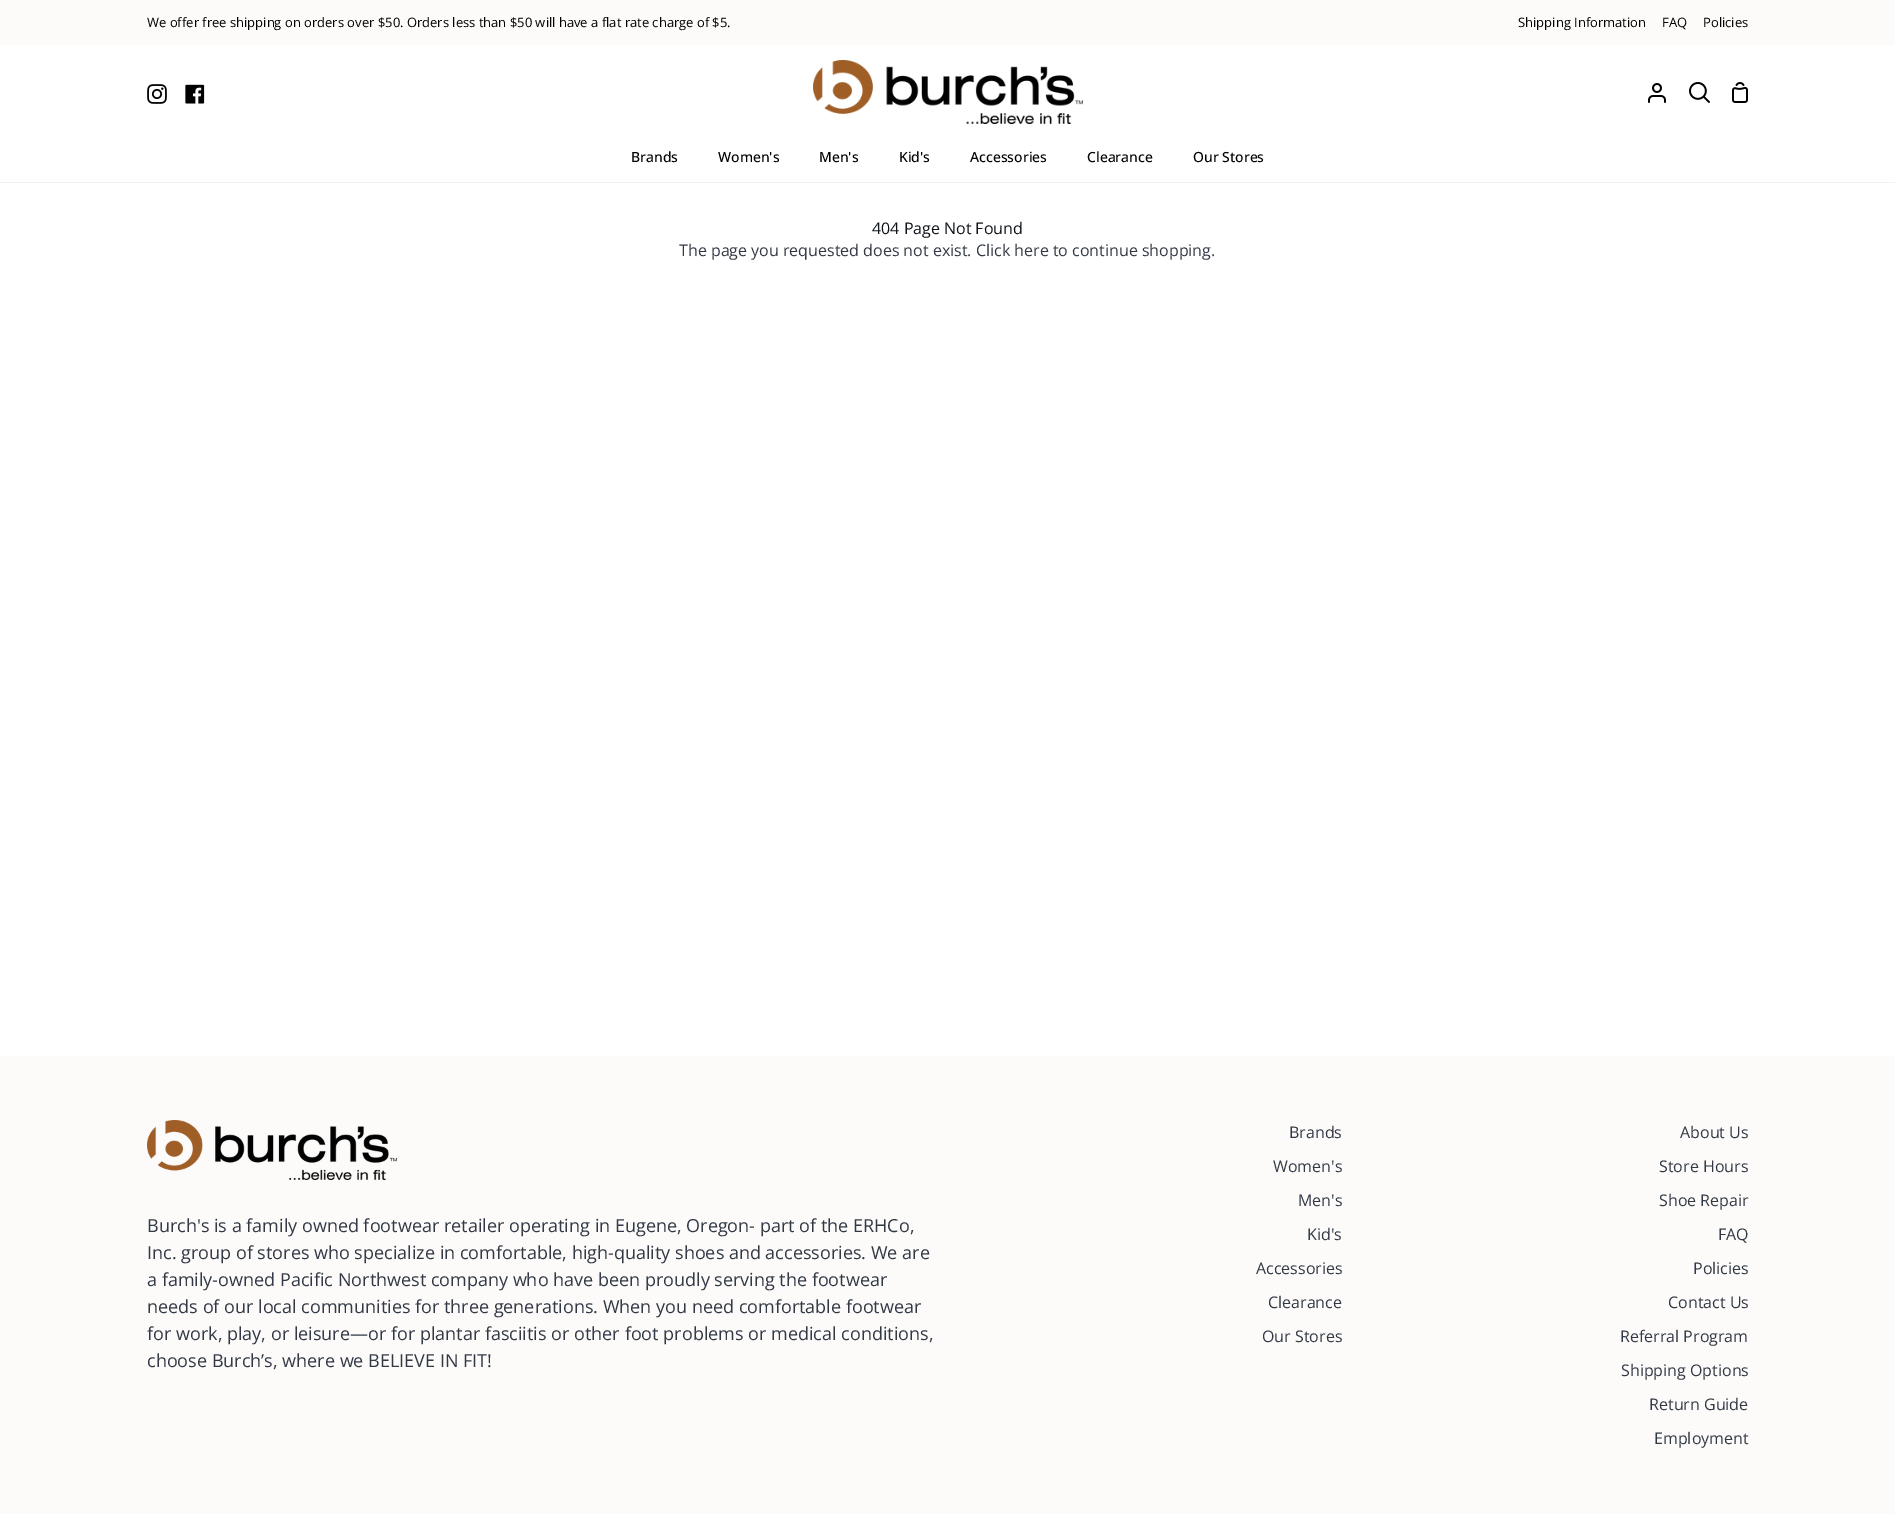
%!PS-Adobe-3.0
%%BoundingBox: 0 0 1895 1514
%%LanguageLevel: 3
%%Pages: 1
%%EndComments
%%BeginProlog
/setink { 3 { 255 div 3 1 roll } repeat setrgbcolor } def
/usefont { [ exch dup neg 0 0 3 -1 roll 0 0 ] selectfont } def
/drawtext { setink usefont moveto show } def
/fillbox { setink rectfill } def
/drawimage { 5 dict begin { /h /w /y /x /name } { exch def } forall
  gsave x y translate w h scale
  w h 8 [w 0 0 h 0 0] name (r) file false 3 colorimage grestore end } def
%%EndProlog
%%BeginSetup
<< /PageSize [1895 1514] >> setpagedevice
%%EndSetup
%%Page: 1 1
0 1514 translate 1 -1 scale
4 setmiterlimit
0 0 1895 1514 255 255 255 fillbox
0 182 1895 1 242 242 242 fillbox
0 0 1895 45 252 251 250 fillbox
(We offer free shipping on orders over $50. Orders less than $50 will have a flat rate charge of $5.) 147 27 /OpenSans-Regular 13 0 0 0 drawtext
(Shipping Information) 1518 27 /OpenSans-Regular 13 0 0 0 drawtext
(FAQ) 1662 27 /OpenSans-Regular 13 0 0 0 drawtext
(Policies) 1703 27 /OpenSans-Regular 13 0 0 0 drawtext
(assets/img1.rgb) 147 84 20 20 drawimage
(assets/img2.rgb) 185 84 20 20 drawimage
(assets/img3.rgb) 813 60 270 64 drawimage
(assets/img4.rgb) 1648 83 18 20 drawimage
(assets/img5.rgb) 1689 82 21 21 drawimage
(assets/img6.rgb) 1732 82 16 21 drawimage
(Brands) 631 162 /OpenSans-Medium 14 0 0 0 drawtext
(Women's) 718 162 /OpenSans-Medium 14 0 0 0 drawtext
(Men's) 819 162 /OpenSans-Medium 14 0 0 0 drawtext
(Kid's) 899 162 /OpenSans-Medium 14 0 0 0 drawtext
(Accessories) 970 162 /OpenSans-Medium 14 0 0 0 drawtext
(Clearance) 1087 162 /OpenSans-Medium 14 0 0 0 drawtext
(Our Stores) 1193 162 /OpenSans-Medium 14 0 0 0 drawtext
(404 Page Not Found) 872 234 /OpenSans-Regular 16 16 20 27 drawtext
(The page you requested does not exist. Click here to continue shopping.) 679 256 /OpenSans-Regular 16 50 57 69 drawtext
0 1056 1895 458 252 251 250 fillbox
(assets/img7.rgb) 147 1120 250 60 drawimage
(Burch's is a family owned footwear retailer operating in Eugene, Oregon- part of the ERHCo,) 147 1232 /OpenSans-Regular 18 50 57 69 drawtext
(Inc. group of stores who specialize in comfortable, high-quality shoes and accessories. We are) 147 1259 /OpenSans-Regular 18 50 57 69 drawtext
(a family-owned Pacific Northwest company who have been proudly serving the footwear) 147 1286 /OpenSans-Regular 18 50 57 69 drawtext
(needs of our local communities for three generations. When you need comfortable footwear) 147 1313 /OpenSans-Regular 18 50 57 69 drawtext
(for work, play, or leisure—or for plantar fasciitis or other foot problems or medical conditions,) 147 1340 /OpenSans-Regular 18 50 57 69 drawtext
(choose Burch’s, where we BELIEVE IN FIT!) 147 1367 /OpenSans-Regular 18 50 57 69 drawtext
(Brands) 1289 1138 /OpenSans-Regular 16 50 57 69 drawtext
(Women's) 1273 1172 /OpenSans-Regular 16 50 57 69 drawtext
(Men's) 1298 1206 /OpenSans-Regular 16 50 57 69 drawtext
(Kid's) 1307 1240 /OpenSans-Regular 16 50 57 69 drawtext
(Accessories) 1256 1274 /OpenSans-Regular 16 50 57 69 drawtext
(Clearance) 1268 1308 /OpenSans-Regular 16 50 57 69 drawtext
(Our Stores) 1262 1342 /OpenSans-Regular 16 50 57 69 drawtext
(About Us) 1680 1138 /OpenSans-Regular 16 50 57 69 drawtext
(Store Hours) 1659 1172 /OpenSans-Regular 16 50 57 69 drawtext
(Shoe Repair) 1659 1206 /OpenSans-Regular 16 50 57 69 drawtext
(FAQ) 1718 1240 /OpenSans-Regular 16 50 57 69 drawtext
(Policies) 1693 1274 /OpenSans-Regular 16 50 57 69 drawtext
(Contact Us) 1668 1308 /OpenSans-Regular 16 50 57 69 drawtext
(Referral Program) 1620 1342 /OpenSans-Regular 16 50 57 69 drawtext
(Shipping Options) 1621 1376 /OpenSans-Regular 16 50 57 69 drawtext
(Return Guide) 1649 1410 /OpenSans-Regular 16 50 57 69 drawtext
(Employment) 1654 1444 /OpenSans-Regular 16 50 57 69 drawtext
showpage
%%EOF
